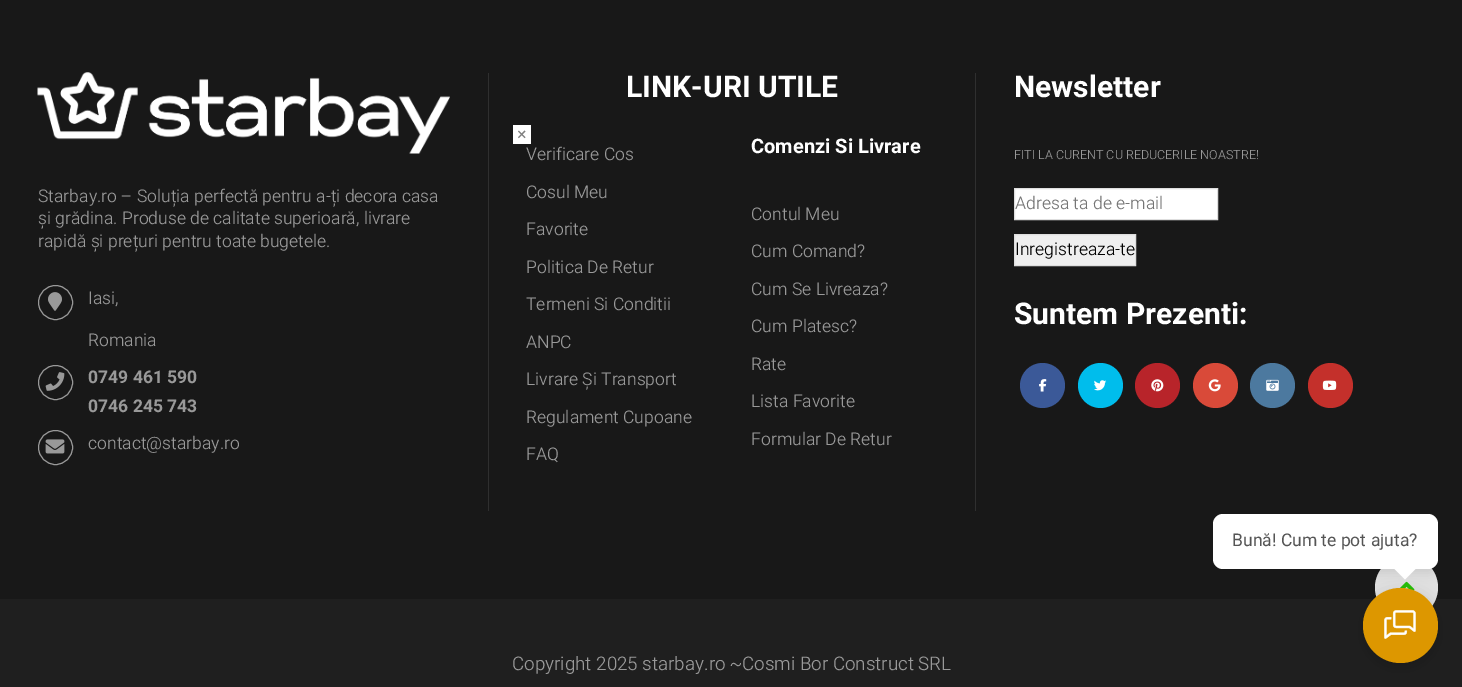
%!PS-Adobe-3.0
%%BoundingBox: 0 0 1462 687
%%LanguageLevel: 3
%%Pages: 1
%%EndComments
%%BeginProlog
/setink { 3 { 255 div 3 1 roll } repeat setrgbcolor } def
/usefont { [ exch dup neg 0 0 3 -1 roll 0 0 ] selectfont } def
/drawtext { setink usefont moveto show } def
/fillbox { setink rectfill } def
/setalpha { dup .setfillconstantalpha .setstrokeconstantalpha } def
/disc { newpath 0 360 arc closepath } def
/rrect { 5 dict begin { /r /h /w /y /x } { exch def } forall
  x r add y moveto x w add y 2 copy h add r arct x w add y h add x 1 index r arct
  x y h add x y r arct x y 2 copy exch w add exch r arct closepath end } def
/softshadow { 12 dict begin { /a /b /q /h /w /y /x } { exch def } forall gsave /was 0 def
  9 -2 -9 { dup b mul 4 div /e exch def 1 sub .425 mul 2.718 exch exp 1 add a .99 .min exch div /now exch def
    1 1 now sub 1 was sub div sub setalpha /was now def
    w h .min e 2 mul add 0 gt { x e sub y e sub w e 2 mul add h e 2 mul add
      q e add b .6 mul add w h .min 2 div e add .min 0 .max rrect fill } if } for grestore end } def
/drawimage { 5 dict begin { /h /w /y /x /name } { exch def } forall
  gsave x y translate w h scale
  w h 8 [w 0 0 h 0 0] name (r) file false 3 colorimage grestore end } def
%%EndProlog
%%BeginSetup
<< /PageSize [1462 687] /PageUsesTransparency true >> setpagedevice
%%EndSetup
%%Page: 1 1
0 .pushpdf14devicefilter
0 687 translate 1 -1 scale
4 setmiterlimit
0 0 1462 687 24 24 24 fillbox
(assets/img1.rgb) 37 72 413 82 drawimage
(Starbay.ro – Soluția perfectă pentru a-ți decora casa) 38 202 /Heebo-Light 17.5 153 153 153 drawtext
(și grădina. Produse de calitate superioară, livrare) 38 224 /Heebo-Light 17.5 153 153 153 drawtext
(rapidă și prețuri pentru toate bugetele.) 38 247 /Heebo-Light 17.5 153 153 153 drawtext
55.5 302.5 17 disc stroke
(assets/img2.rgb) 48 292 14 19 drawimage
(Iasi,) 88 304 /Heebo-Light 17.5 153 153 153 drawtext
(Romania) 88 346 /Heebo-Light 17.5 153 153 153 drawtext
55.5 382.5 17 disc stroke
(assets/img3.rgb) 45 372 20 19 drawimage
(0749 461 590) 88 383 /Heebo-Bold 17.5 153 153 153 drawtext
(0746 245 743) 88 412 /Heebo-Bold 17.5 153 153 153 drawtext
55.5 447.5 17 disc stroke
(assets/img4.rgb) 45 439 20 15 drawimage
(contact@starbay.ro) 88 449 /Heebo-Light 17.5 153 153 153 drawtext
488 73 1 438 47 47 47 fillbox
(LINK-URI UTILE) 626 97 /Heebo-Bold 30 255 255 255 drawtext
(Verificare Cos) 526 160 /Heebo-Light 17.5 153 153 153 drawtext
(Cosul Meu) 526 198 /Heebo-Light 17.5 153 153 153 drawtext
(Favorite) 526 235 /Heebo-Light 17.5 153 153 153 drawtext
(Politica De Retur) 526 273 /Heebo-Light 17.5 153 153 153 drawtext
(Termeni Si Conditii) 526 310 /Heebo-Light 17.5 153 153 153 drawtext
(ANPC) 526 348 /Heebo-Light 17.5 153 153 153 drawtext
(Livrare Și Transport) 526 385 /Heebo-Light 17.5 153 153 153 drawtext
(Regulament Cupoane) 526 423 /Heebo-Light 17.5 153 153 153 drawtext
(FAQ) 526 460 /Heebo-Light 17.5 153 153 153 drawtext
(Comenzi Si Livrare) 751 153 /Heebo-Bold 20 255 255 255 drawtext
(Contul Meu) 751 220 /Heebo-Light 17.5 153 153 153 drawtext
(Cum Comand?) 751 257 /Heebo-Light 17.5 153 153 153 drawtext
(Cum Se Livreaza?) 751 295 /Heebo-Light 17.5 153 153 153 drawtext
(Cum Platesc?) 751 332 /Heebo-Light 17.5 153 153 153 drawtext
(Rate) 751 370 /Heebo-Light 17.5 153 153 153 drawtext
(Lista Favorite) 751 407 /Heebo-Light 17.5 153 153 153 drawtext
(Formular De Retur) 751 445 /Heebo-Light 17.5 153 153 153 drawtext
975 73 1 438 47 47 47 fillbox
(Newsletter) 1014 97 /Heebo-Bold 30 255 255 255 drawtext
(FITI LA CURENT CU REDUCERILE NOASTRE!) 1014 159 /Heebo-Light 12.5 153 153 153 drawtext
255 255 255 setink
1014.5 188.5 moveto 1217.5 188.5 lineto 1217.5 219.5 lineto 1014.5 219.5 lineto closepath gsave fill grestore
222 222 222 setink
stroke
(Adresa ta de e-mail) 1015 209 /Heebo-Light 17.5 117 117 117 drawtext
239 239 239 setink
1014.5 234.5 moveto 1135.5 234.5 lineto 1135.5 265.5 lineto 1014.5 265.5 lineto closepath gsave fill grestore
222 222 222 setink
stroke
(Inregistreaza-te) 1015 255 /Heebo-Light 17.5 0 0 0 drawtext
(Suntem Prezenti:) 1014 324 /Heebo-Bold 30 255 255 255 drawtext
59 89 152 setink
1042.5 385.5 22.5 disc fill
(assets/img5.rgb) 1039 379 8 13 drawimage
0 189 236 setink
1100.5 385.5 22.5 disc fill
(assets/img6.rgb) 1094 380 13 11 drawimage
184 36 42 setink
1157.5 385.5 22.5 disc fill
(assets/img7.rgb) 1151 379 13 13 drawimage
217 74 57 setink
1215.5 385.5 22.5 disc fill
(assets/img8.rgb) 1208 379 13 13 drawimage
76 121 159 setink
1272.5 385.5 22.5 disc fill
(assets/img9.rgb) 1266 379 13 12 drawimage
196 48 43 setink
1330.5 385.5 22.5 disc fill
(assets/img10.rgb) 1322 380 15 10 drawimage
0 599 1462 88 31 31 31 fillbox
224 224 224 setink
1406.5 587.5 31.5 disc fill
(assets/img11.rgb) 1399 581 16 10 drawimage
(Copyright 2025 starbay.ro ~Cosmi Bor Construct SRL) 512 670 /Heebo-Light 18.75 153 153 153 drawtext
513 125 18 19 255 255 255 fillbox
(×) 517 140 /Heebo-Regular 17.5 128 128 128 drawtext
0 0 0 setink
1213 518 225 55 10 5 0.1 softshadow
255 255 255 setink
1213 514 225 55 10 rrect fill
(Bună! Cum te pot ajuta?) 1232 546 /Heebo-Regular 17.5 85 85 85 drawtext
255 255 255 setink
1405 558 moveto 1415.5 569 lineto 1405 579.5 lineto 1394.5 569 lineto closepath fill
0 0 0 setink
1363 593 75 75 37.5 7.5 0.15 softshadow
221 151 0 setink
1400.5 625.5 37.5 disc fill
(assets/img12.rgb) 1384 610 32 29 drawimage
.poppdf14devicefilter showpage
%%EOF
